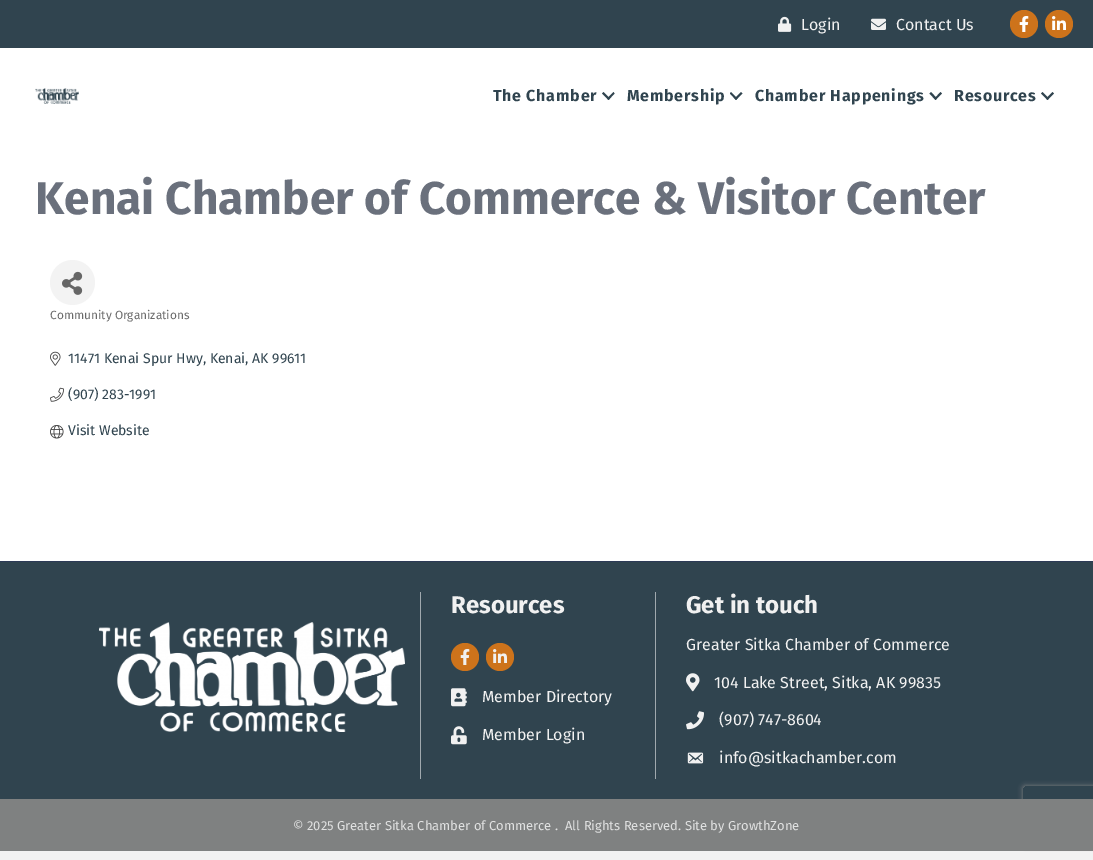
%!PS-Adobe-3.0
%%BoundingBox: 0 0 1093 860
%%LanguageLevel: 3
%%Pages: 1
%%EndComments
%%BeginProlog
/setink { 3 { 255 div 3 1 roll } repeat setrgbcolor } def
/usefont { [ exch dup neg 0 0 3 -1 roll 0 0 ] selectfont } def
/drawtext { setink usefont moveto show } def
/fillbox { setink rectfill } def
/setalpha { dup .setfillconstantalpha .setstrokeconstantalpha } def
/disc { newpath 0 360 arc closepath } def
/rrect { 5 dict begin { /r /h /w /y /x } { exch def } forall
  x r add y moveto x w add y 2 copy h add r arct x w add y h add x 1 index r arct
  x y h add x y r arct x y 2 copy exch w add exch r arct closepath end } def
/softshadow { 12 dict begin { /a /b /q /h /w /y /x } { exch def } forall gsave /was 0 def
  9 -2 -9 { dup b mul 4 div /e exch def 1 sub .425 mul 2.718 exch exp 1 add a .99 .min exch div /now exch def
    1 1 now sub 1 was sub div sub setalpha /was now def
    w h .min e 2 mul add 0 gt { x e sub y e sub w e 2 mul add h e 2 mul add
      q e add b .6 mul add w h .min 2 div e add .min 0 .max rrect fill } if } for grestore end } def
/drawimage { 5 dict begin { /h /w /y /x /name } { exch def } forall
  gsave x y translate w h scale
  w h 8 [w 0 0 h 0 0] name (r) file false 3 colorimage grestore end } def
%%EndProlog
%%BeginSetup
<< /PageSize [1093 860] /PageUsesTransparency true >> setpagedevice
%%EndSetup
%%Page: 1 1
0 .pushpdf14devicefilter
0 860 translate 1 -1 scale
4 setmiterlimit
0 0 1093 860 242 242 242 fillbox
0 0 1093 48 48 68 79 fillbox
(assets/img1.rgb) 778 16 14 16 drawimage
(Login) 801 30 /FiraSans-Regular 16 241 241 241 drawtext
(assets/img2.rgb) 871 18 15 12 drawimage
(Contact Us) 896 30 /FiraSans-Regular 16 241 241 241 drawtext
205 115 27 setink
1024 24 14 disc fill
(assets/img3.rgb) 1019 16 10 16 drawimage
1059 24 14 disc fill
(assets/img4.rgb) 1052 16 14 14 drawimage
0 48 1093 513 255 255 255 fillbox
(assets/img5.rgb) 35 88 44 16 drawimage
/FiraSans-Bold 16 usefont
48 68 79 setink
493 101 moveto 0.75 0 (The Chamber) ashow
613.5 92 moveto 614.5 93.5 lineto 608.5 100 lineto 607 98.5 lineto closepath fill
603.5 92 moveto 610 98.5 lineto 608.5 100 lineto 602 93.5 lineto closepath fill
627 101 moveto 0.75 0 (Membership) ashow
741 92 moveto 742.5 93.5 lineto 736 100 lineto 734.5 98.5 lineto closepath fill
731 92 moveto 737.5 98.5 lineto 736 100 lineto 730 93.5 lineto closepath fill
755 101 moveto 0.75 0 (Chamber Happenings) ashow
940.5 92 moveto 942 93.5 lineto 935.5 100 lineto 934.5 98.5 lineto closepath fill
931 92 moveto 937 98.5 lineto 935.5 100 lineto 929.5 93.5 lineto closepath fill
954 101 moveto 0.75 0 (Resources) ashow
1052.5 92 moveto 1054 93.5 lineto 1047.5 100 lineto 1046 98.5 lineto closepath fill
1042.5 92 moveto 1049 98.5 lineto 1047.5 100 lineto 1041 93.5 lineto closepath fill
(Kenai Chamber of Commerce & Visitor Center) 35 214 /FiraSans-Bold 46 106 112 124 drawtext
243 243 243 setink
72.5 282.5 22.5 disc fill
(assets/img6.rgb) 62 271 21 24 drawimage
(Community Organizations) 50 319 /FiraSans-Regular 11.9 105 105 105 drawtext
(assets/img7.rgb) 50 351 11 15 drawimage
(11471 Kenai Spur Hwy, Kenai, AK 99611) 68 363 /FiraSans-Regular 14 48 68 79 drawtext
(assets/img8.rgb) 50 387 14 15 drawimage
(\(907\) 283-1991) 68 399 /FiraSans-Regular 14 48 68 79 drawtext
(assets/img9.rgb) 50 425 14 14 drawimage
(Visit Website) 68 435 /FiraSans-Regular 14 48 68 79 drawtext
0 562 1093 237 48 68 79 fillbox
0 561 1093 1 44 58 86 fillbox
(assets/img10.rgb) 99 622 306 110 drawimage
420 592 1 187 160 169 174 fillbox
(Resources) 451 613 /FiraSans-Bold 24 241 241 241 drawtext
205 115 27 setink
465 657 14 disc fill
(assets/img11.rgb) 460 649 10 16 drawimage
500 657 14 disc fill
(assets/img12.rgb) 493 649 14 14 drawimage
(assets/img13.rgb) 451 688 16 19 drawimage
(Member Directory) 482 702 /FiraSans-Regular 16 241 241 241 drawtext
(assets/img14.rgb) 451 726 16 19 drawimage
(Member Login) 482 740 /FiraSans-Regular 16 241 241 241 drawtext
655 592 1 187 160 169 174 fillbox
(Get in touch) 686 613 /FiraSans-Bold 24 241 241 241 drawtext
(Greater Sitka Chamber of Commerce) 686 650 /FiraSans-Regular 16 241 241 241 drawtext
(assets/img15.rgb) 686 673 14 19 drawimage
(104 Lake Street, Sitka, AK 99835) 714 688 /FiraSans-Regular 16 241 241 241 drawtext
(assets/img16.rgb) 686 711 18 19 drawimage
(\(907\) 747-8604) 719 725 /FiraSans-Regular 16 241 241 241 drawtext
(assets/img17.rgb) 687 752 17 12 drawimage
(info@sitkachamber.com) 719 763 /FiraSans-Regular 16 241 241 241 drawtext
0 799 1093 52 127 129 129 fillbox
(© 2025 Greater Sitka Chamber of Commerce .) 293 830 /FiraSans-Regular 13 224 225 225 drawtext
(All Rights Reserved. Site by GrowthZone) 565 830 /FiraSans-Regular 13 224 225 225 drawtext
gsave
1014 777 moveto 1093 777 lineto 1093 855 lineto 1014 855 lineto closepath 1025 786 moveto 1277 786 lineto 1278 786 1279 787 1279 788 curveto 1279 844 lineto 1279 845 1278 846 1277 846 curveto 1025 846 lineto 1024 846 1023 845 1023 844 curveto 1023 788 lineto 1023 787 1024 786 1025 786 curveto closepath eoclip newpath
128 128 128 setink
1023 786 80 60 2 2.5 1 softshadow
grestore
.poppdf14devicefilter showpage
%%EOF
